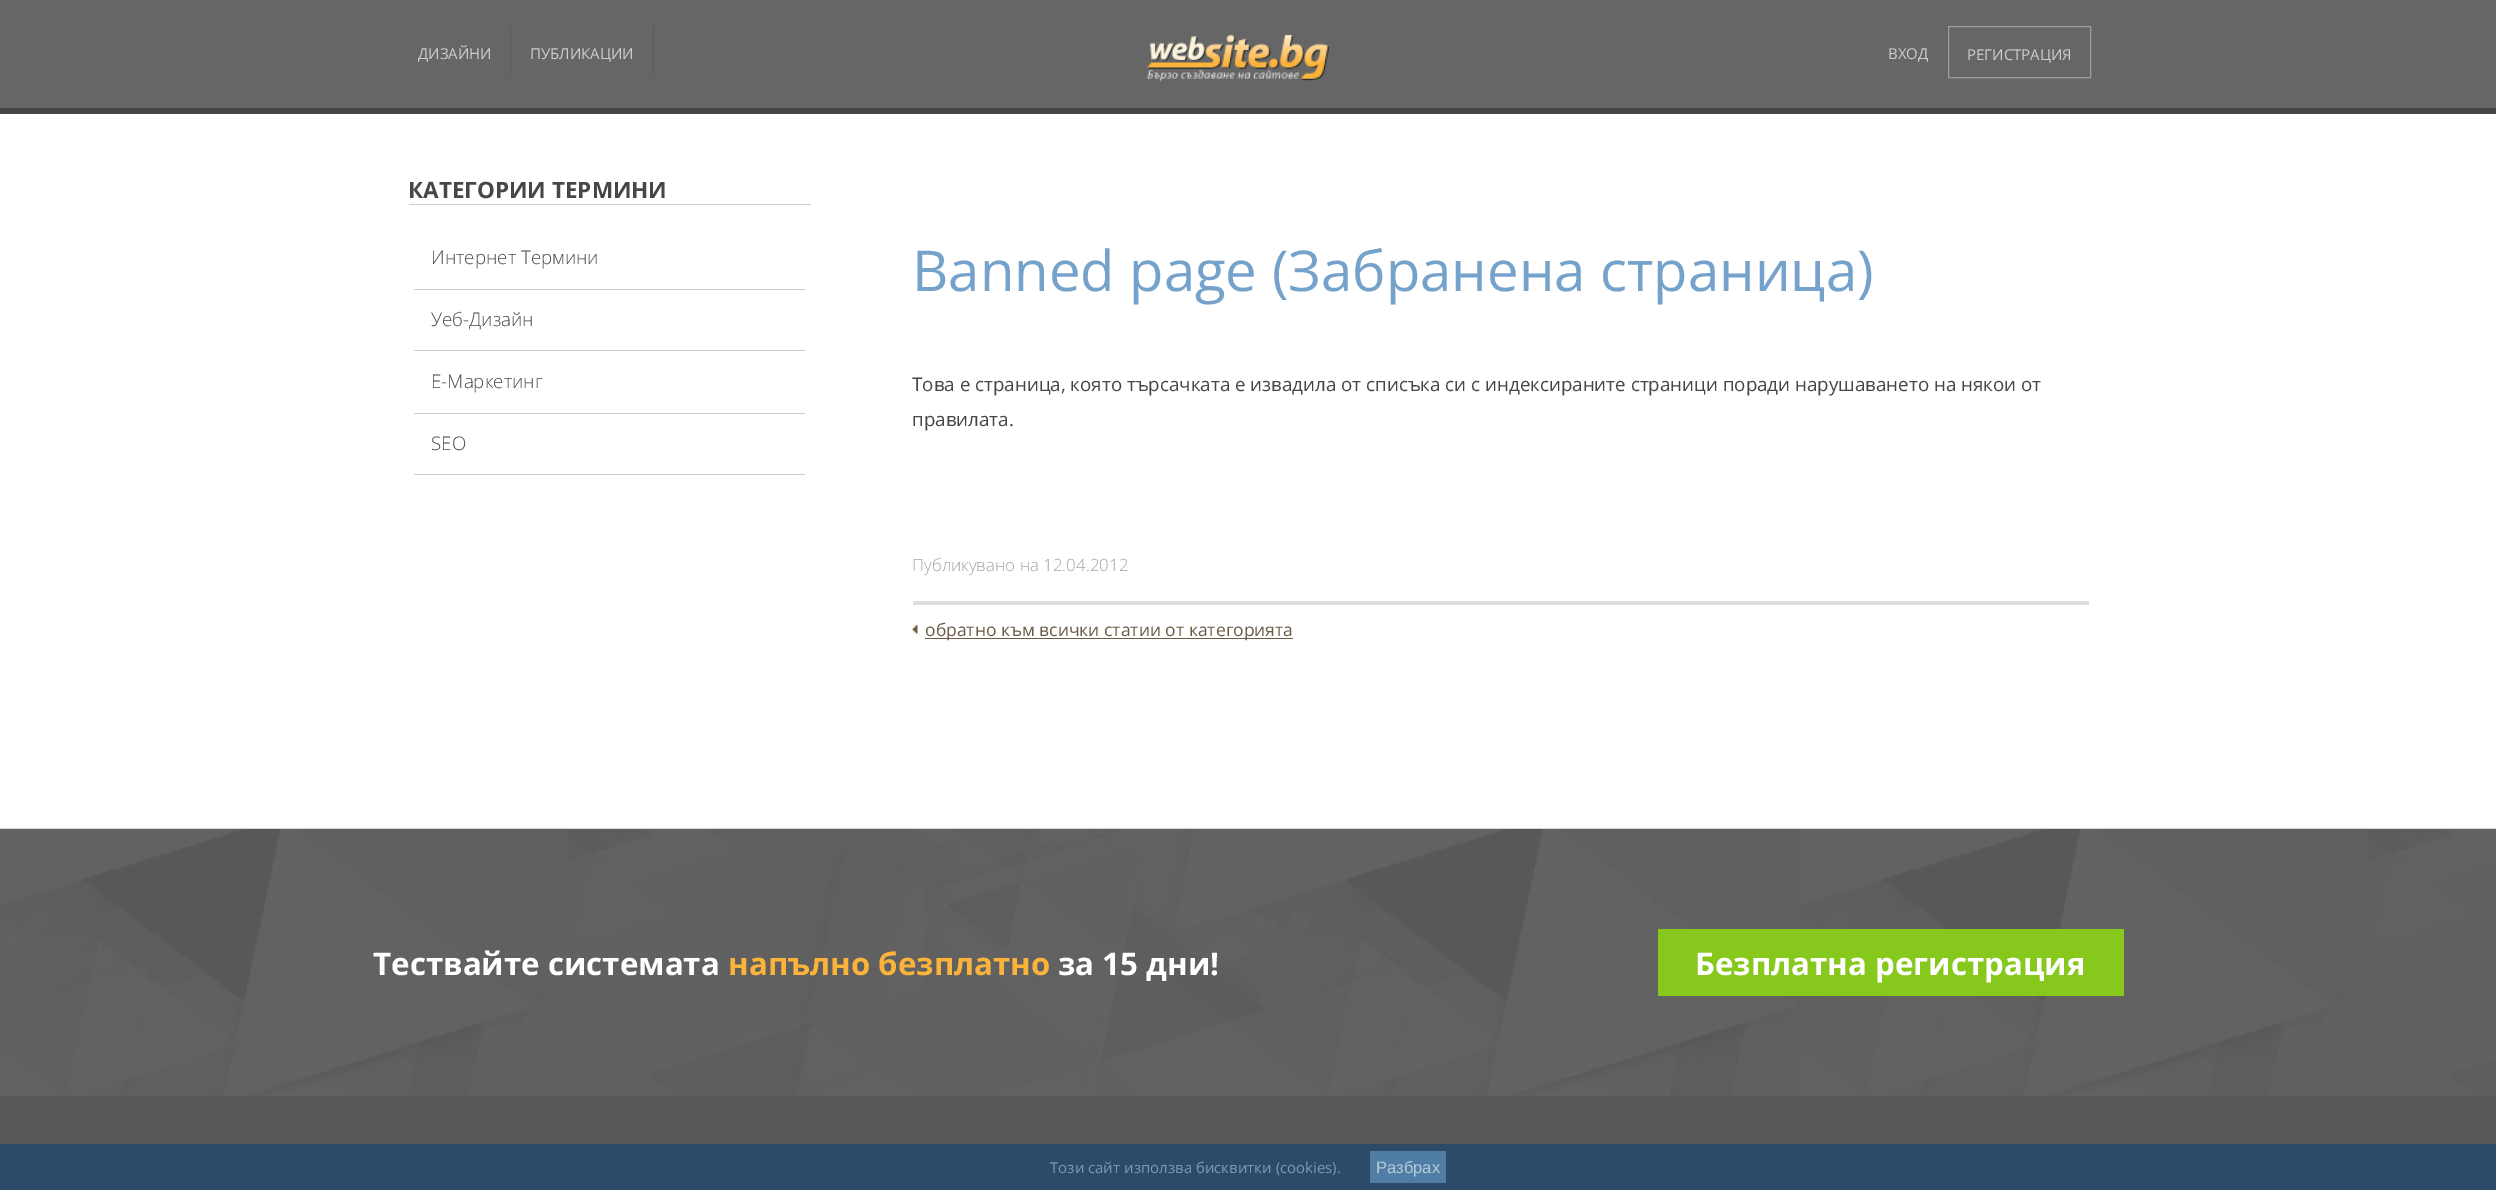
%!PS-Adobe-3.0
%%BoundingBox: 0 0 2496 1190
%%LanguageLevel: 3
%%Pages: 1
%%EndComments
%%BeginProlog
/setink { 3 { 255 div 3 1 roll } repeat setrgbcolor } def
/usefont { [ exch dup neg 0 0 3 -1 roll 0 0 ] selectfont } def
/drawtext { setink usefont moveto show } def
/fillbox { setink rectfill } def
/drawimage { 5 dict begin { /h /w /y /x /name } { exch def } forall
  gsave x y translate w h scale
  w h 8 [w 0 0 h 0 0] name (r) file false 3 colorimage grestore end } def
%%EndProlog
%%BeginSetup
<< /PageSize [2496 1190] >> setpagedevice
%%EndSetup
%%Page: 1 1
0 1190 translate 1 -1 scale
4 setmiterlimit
0 0 2496 1190 255 255 255 fillbox
0 0 2496 108 102 102 102 fillbox
0 108 2496 6 71 71 71 fillbox
510 26 1 49 90 90 90 fillbox
(ДИЗАЙНИ) 418 59 /OpenSans-Regular 15 205 205 205 drawtext
653 26 1 49 90 90 90 fillbox
(ПУБЛИКАЦИИ) 530 59 /OpenSans-Regular 15 205 205 205 drawtext
(assets/img1.rgb) 1147 34 182 48 drawimage
(ВХОД) 1888 59 /OpenSans-Regular 15 205 205 205 drawtext
157 157 157 setink
1948.5 26.5 142 51 rectstroke
(РЕГИСТРАЦИЯ) 1967 60 /OpenSans-Regular 15 205 205 205 drawtext
409 204 402 1 204 204 204 fillbox
(КАТЕГОРИИ ТЕРМИНИ) 408 198 /OpenSans-Bold 22.5 71 71 71 drawtext
414 289 391 1 204 204 204 fillbox
(Интернет Термини) 431 264 /OpenSans-Light 18.75 71 71 71 drawtext
414 350 391 1 204 204 204 fillbox
(Уеб-Дизайн) 431 326 /OpenSans-Light 18.75 71 71 71 drawtext
414 413 391 1 204 204 204 fillbox
(Е-Маркетинг) 431 388 /OpenSans-Light 18.75 71 71 71 drawtext
414 474 391 1 204 204 204 fillbox
(SEO) 431 450 /OpenSans-Light 18.75 71 71 71 drawtext
(Banned page \(Забранена страница\)) 912 291 /OpenSans-Regular 56.25 116 162 202 drawtext
(Това е страница, която търсачката е извадила от списъка си с индексираните страници поради нарушаването на някои от) 912 391 /OpenSans-Regular 18.75 71 71 71 drawtext
(правилата.) 912 426 /OpenSans-Regular 18.75 71 71 71 drawtext
(Публикувано на 12.04.2012) 912 571 /OpenSans-Light 16.9 163 163 163 drawtext
913 601 1176 4 222 222 222 fillbox
(assets/img2.rgb) 912 625 6 9 drawimage
925 638 368 1 106 91 69 fillbox
(обратно към всички статии от категорията) 925 636 /OpenSans-Regular 17.5 106 91 69 drawtext
(assets/img3.rgb) 0 828 2496 268 drawimage
(Тествайте системата) 373 975 /OpenSans-Bold 31.25 255 255 255 drawtext
(напълно безплатно) 728 975 /OpenSans-Bold 31.25 252 179 60 drawtext
(за 15 дни!) 1058 975 /OpenSans-Bold 31.25 255 255 255 drawtext
1658 929 466 67 134 200 27 fillbox
(Безплатна регистрация) 1695 975 /OpenSans-Bold 31.25 255 255 255 drawtext
0 1096 2496 48 88 88 88 fillbox
0 1144 2496 46 44 75 104 fillbox
(Този сайт използва бисквитки \(cookies\).) 1050 1173 /OpenSans-Regular 15 116 155 188 drawtext
1370 1151 76 32 80 125 166 fillbox
(Разбрах) 1376 1173 /LiberationSans-Regular 16.5 180 204 214 drawtext
showpage
%%EOF
